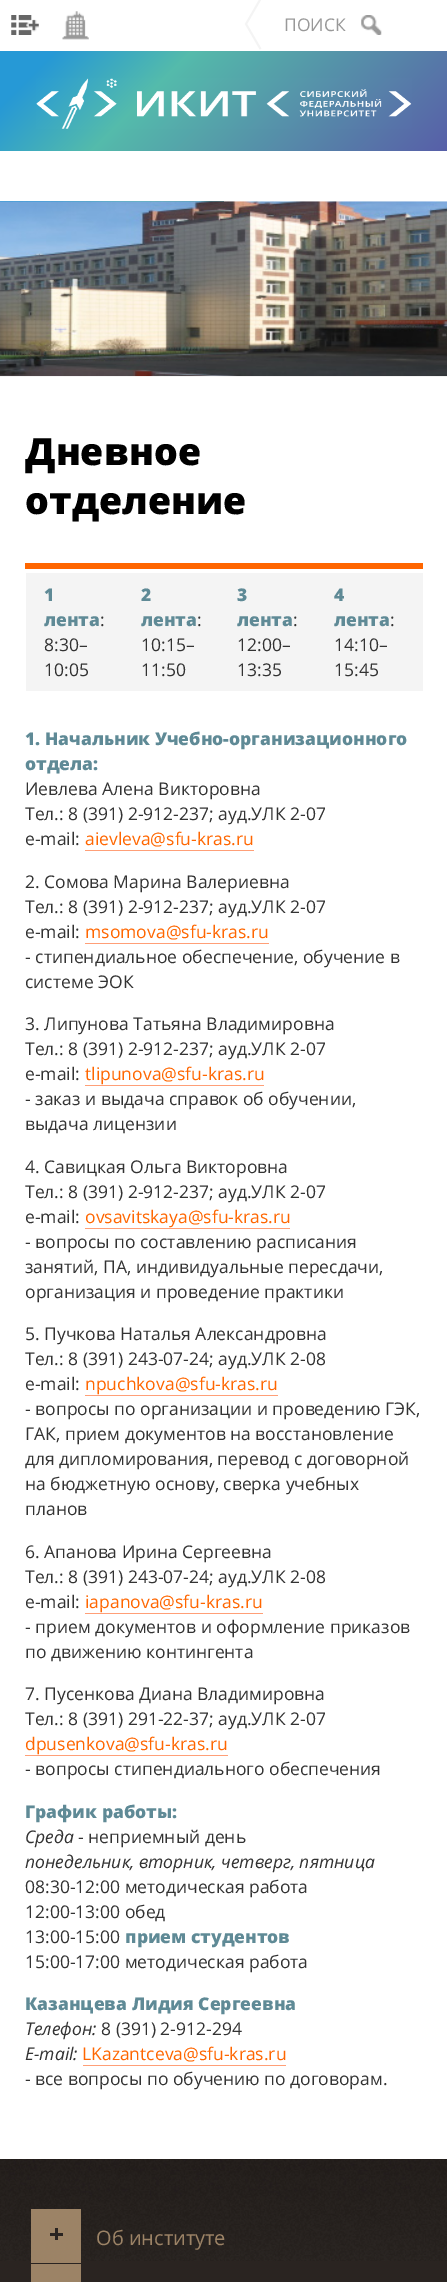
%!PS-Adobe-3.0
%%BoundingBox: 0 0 447 2282
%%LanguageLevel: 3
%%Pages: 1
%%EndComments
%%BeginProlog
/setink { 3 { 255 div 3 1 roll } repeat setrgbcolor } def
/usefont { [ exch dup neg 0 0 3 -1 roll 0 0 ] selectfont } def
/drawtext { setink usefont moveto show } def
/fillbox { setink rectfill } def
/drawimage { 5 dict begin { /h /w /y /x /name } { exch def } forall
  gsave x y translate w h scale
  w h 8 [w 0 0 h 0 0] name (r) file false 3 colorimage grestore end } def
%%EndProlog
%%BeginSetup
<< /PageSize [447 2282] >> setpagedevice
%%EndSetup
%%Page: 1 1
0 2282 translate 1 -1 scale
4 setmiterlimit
0 0 447 2282 255 255 255 fillbox
(assets/img1.rgb) 11 15 28 20 drawimage
(assets/img2.rgb) 62 11 27 29 drawimage
244 244 244 setink
1.8 setlinewidth
260.5 -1 moveto 246 24 lineto 260.5 49 lineto stroke
(ПОИСК) 284 31 /OpenSans-Regular 17.5 153 153 153 drawtext
(assets/img3.rgb) 361 15 21 20 drawimage
gsave 0 51 moveto 447 51 lineto 447 151 lineto 0 151 lineto closepath clip newpath
<< /ShadingType 2 /ColorSpace /DeviceRGB /Coords [361 238 87 -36] /Extend [true true] /Function << /FunctionType 3 /Domain [0 1] /Functions [<< /FunctionType 2 /Domain [0 1] /C0 [0.345 0.373 0.659] /C1 [0.329 0.733 0.671] /N 1 >> << /FunctionType 2 /Domain [0 1] /C0 [0.329 0.733 0.671] /C1 [0.149 0.6 0.839] /N 1 >> << /FunctionType 2 /Domain [0 1] /C0 [0.149 0.6 0.839] /C1 [0.149 0.6 0.839] /N 1 >>] /Bounds [0.65 0.9] /Encode [0 1 0 1 0 1] >> >> shfill grestore
(assets/img4.rgb) 36 78 376 51 drawimage
gsave 0 201 moveto 224 201 lineto 224 202 lineto 0 202 lineto closepath clip newpath
<< /ShadingType 2 /ColorSpace /DeviceRGB /Coords [212 388 12 189] /Extend [true true] /Function << /FunctionType 3 /Domain [0 1] /Functions [<< /FunctionType 2 /Domain [0 1] /C0 [0.345 0.373 0.659] /C1 [0.329 0.733 0.671] /N 1 >> << /FunctionType 2 /Domain [0 1] /C0 [0.329 0.733 0.671] /C1 [0.149 0.6 0.839] /N 1 >> << /FunctionType 2 /Domain [0 1] /C0 [0.149 0.6 0.839] /C1 [0.149 0.6 0.839] /N 1 >>] /Bounds [0.65 0.9] /Encode [0 1 0 1 0 1] >> >> shfill grestore
(assets/img5.rgb) 0 201 447 176 drawimage
(Дневное) 25 465 /OpenSans-ExtraBold 37.5 0 0 0 drawtext
(отделение) 25 514 /OpenSans-ExtraBold 37.5 0 0 0 drawtext
25 563 398 6 255 102 0 fillbox
26 573 397 118 244 244 244 fillbox
(1) 44 601 /OpenSans-ExtraBold 17.5 95 138 150 drawtext
(лента) 44 626 /OpenSans-ExtraBold 17.5 95 138 150 drawtext
(:) 100 626 /OpenSans-Regular 17.5 51 51 51 drawtext
(8:30–) 44 651 /OpenSans-Regular 17.5 51 51 51 drawtext
(10:05) 44 676 /OpenSans-Regular 17.5 51 51 51 drawtext
(2) 141 601 /OpenSans-ExtraBold 17.5 95 138 150 drawtext
(лента) 141 626 /OpenSans-ExtraBold 17.5 95 138 150 drawtext
(:) 197 626 /OpenSans-Regular 17.5 51 51 51 drawtext
(10:15–) 141 651 /OpenSans-Regular 17.5 51 51 51 drawtext
(11:50) 141 676 /OpenSans-Regular 17.5 51 51 51 drawtext
(3) 237 601 /OpenSans-ExtraBold 17.5 95 138 150 drawtext
(лента) 237 626 /OpenSans-ExtraBold 17.5 95 138 150 drawtext
(:) 293 626 /OpenSans-Regular 17.5 51 51 51 drawtext
(12:00–) 237 651 /OpenSans-Regular 17.5 51 51 51 drawtext
(13:35) 237 676 /OpenSans-Regular 17.5 51 51 51 drawtext
(4) 334 601 /OpenSans-ExtraBold 17.5 95 138 150 drawtext
(лента) 334 626 /OpenSans-ExtraBold 17.5 95 138 150 drawtext
(:) 390 626 /OpenSans-Regular 17.5 51 51 51 drawtext
(14:10–) 334 651 /OpenSans-Regular 17.5 51 51 51 drawtext
(15:45) 334 676 /OpenSans-Regular 17.5 51 51 51 drawtext
(1. Начальник Учебно-организационного) 25 745 /OpenSans-ExtraBold 17.5 95 138 150 drawtext
(отдела:) 25 770 /OpenSans-ExtraBold 17.5 95 138 150 drawtext
(Иевлева Алена Викторовна) 25 795 /OpenSans-Regular 17.5 51 51 51 drawtext
(Тел.: 8 \(391\) 2-912-237; ауд.УЛК 2-07) 25 820 /OpenSans-Regular 17.5 51 51 51 drawtext
(e-mail:) 25 845 /OpenSans-Regular 17.5 51 51 51 drawtext
(aievleva@sfu-kras.ru) 85 845 /OpenSans-Regular 17.5 255 102 0 drawtext
85 850 169 1 255 159 119 fillbox
(2. Сомова Марина Валериевна) 25 888 /OpenSans-Regular 17.5 51 51 51 drawtext
(Тел.: 8 \(391\) 2-912-237; ауд.УЛК 2-07) 25 913 /OpenSans-Regular 17.5 51 51 51 drawtext
(e-mail:) 25 938 /OpenSans-Regular 17.5 51 51 51 drawtext
(msomova@sfu-kras.ru) 85 938 /OpenSans-Regular 17.5 255 102 0 drawtext
85 943 184 1 255 159 119 fillbox
(- стипендиальное обеспечение, обучение в) 25 963 /OpenSans-Regular 17.5 51 51 51 drawtext
(системе ЭОК) 25 988 /OpenSans-Regular 17.5 51 51 51 drawtext
(3. Липунова Татьяна Владимировна) 25 1030 /OpenSans-Regular 17.5 51 51 51 drawtext
(Тел.: 8 \(391\) 2-912-237; ауд.УЛК 2-07) 25 1055 /OpenSans-Regular 17.5 51 51 51 drawtext
(e-mail:) 25 1080 /OpenSans-Regular 17.5 51 51 51 drawtext
(tlipunova@sfu-kras.ru) 85 1080 /OpenSans-Regular 17.5 255 102 0 drawtext
85 1085 179 1 255 159 119 fillbox
(- заказ и выдача справок об обучении,) 25 1105 /OpenSans-Regular 17.5 51 51 51 drawtext
(выдача лицензии) 25 1130 /OpenSans-Regular 17.5 51 51 51 drawtext
(4. Савицкая Ольга Викторовна) 25 1173 /OpenSans-Regular 17.5 51 51 51 drawtext
(Тел.: 8 \(391\) 2-912-237; ауд.УЛК 2-07) 25 1198 /OpenSans-Regular 17.5 51 51 51 drawtext
(e-mail:) 25 1223 /OpenSans-Regular 17.5 51 51 51 drawtext
(ovsavitskaya@sfu-kras.ru) 85 1223 /OpenSans-Regular 17.5 255 102 0 drawtext
85 1228 205 1 255 159 119 fillbox
(- вопросы по составлению расписания) 25 1248 /OpenSans-Regular 17.5 51 51 51 drawtext
(занятий, ПА, индивидуальные пересдачи,) 25 1273 /OpenSans-Regular 17.5 51 51 51 drawtext
(организация и проведение практики) 25 1298 /OpenSans-Regular 17.5 51 51 51 drawtext
(5. Пучкова Наталья Александровна) 25 1340 /OpenSans-Regular 17.5 51 51 51 drawtext
(Тел.: 8 \(391\) 243-07-24; ауд.УЛК 2-08) 25 1365 /OpenSans-Regular 17.5 51 51 51 drawtext
(e-mail:) 25 1390 /OpenSans-Regular 17.5 51 51 51 drawtext
(npuchkova@sfu-kras.ru) 85 1390 /OpenSans-Regular 17.5 255 102 0 drawtext
85 1395 193 1 255 159 119 fillbox
(- вопросы по организации и проведению ГЭК,) 25 1415 /OpenSans-Regular 17.5 51 51 51 drawtext
(ГАК, прием документов на восстановление) 25 1440 /OpenSans-Regular 17.5 51 51 51 drawtext
(для дипломирования, перевод с договорной) 25 1465 /OpenSans-Regular 17.5 51 51 51 drawtext
(на бюджетную основу, сверка учебных) 25 1490 /OpenSans-Regular 17.5 51 51 51 drawtext
(планов) 25 1515 /OpenSans-Regular 17.5 51 51 51 drawtext
(6. Апанова Ирина Сергеевна) 25 1558 /OpenSans-Regular 17.5 51 51 51 drawtext
(Тел.: 8 \(391\) 243-07-24; ауд.УЛК 2-08) 25 1583 /OpenSans-Regular 17.5 51 51 51 drawtext
(e-mail:) 25 1608 /OpenSans-Regular 17.5 51 51 51 drawtext
(iapanova@sfu-kras.ru) 85 1608 /OpenSans-Regular 17.5 255 102 0 drawtext
85 1613 178 1 255 159 119 fillbox
(- прием документов и оформление приказов) 25 1633 /OpenSans-Regular 17.5 51 51 51 drawtext
(по движению контингента) 25 1658 /OpenSans-Regular 17.5 51 51 51 drawtext
(7. Пусенкова Диана Владимировна) 25 1700 /OpenSans-Regular 17.5 51 51 51 drawtext
(Тел.: 8 \(391\) 291-22-37; ауд.УЛК 2-07) 25 1725 /OpenSans-Regular 17.5 51 51 51 drawtext
(dpusenkova@sfu-kras.ru) 25 1750 /OpenSans-Regular 17.5 255 102 0 drawtext
25 1755 203 1 255 159 119 fillbox
(- вопросы стипендиального обеспечения) 25 1775 /OpenSans-Regular 17.5 51 51 51 drawtext
(График работы:) 25 1818 /OpenSans-ExtraBold 17.5 95 138 150 drawtext
(Cреда) 25 1843 /OpenSans-Italic 17.5 51 51 51 drawtext
(- неприемный день) 78 1843 /OpenSans-Regular 17.5 51 51 51 drawtext
(понедельник, вторник, четверг, пятница) 25 1868 /OpenSans-Italic 17.5 51 51 51 drawtext
(08:30-12:00 методическая работа) 25 1893 /OpenSans-Regular 17.5 51 51 51 drawtext
(12:00-13:00 обед) 25 1918 /OpenSans-Regular 17.5 51 51 51 drawtext
(13:00-15:00) 25 1943 /OpenSans-Regular 17.5 51 51 51 drawtext
(прием студентов) 125 1943 /OpenSans-ExtraBold 17.5 95 138 150 drawtext
(15:00-17:00 методическая работа) 25 1968 /OpenSans-Regular 17.5 51 51 51 drawtext
(Казанцева Лидия Сергеевна) 25 2010 /OpenSans-ExtraBold 17.5 95 138 150 drawtext
(Телефон:) 25 2035 /OpenSans-Italic 17.5 51 51 51 drawtext
(8 \(391\) 2-912-294) 101 2035 /OpenSans-Regular 17.5 51 51 51 drawtext
(E-mail:) 25 2060 /OpenSans-Italic 17.5 51 51 51 drawtext
(LKazantceva@sfu-kras.ru) 82 2060 /OpenSans-Regular 17.5 255 102 0 drawtext
83 2065 203 1 255 159 119 fillbox
(- все вопросы по обучению по договорам.) 25 2085 /OpenSans-Regular 17.5 51 51 51 drawtext
0 2261 447 21 42 36 33 fillbox
(assets/img6.rgb) 0 2159 447 102 drawimage
31 2209 50 54 156 131 102 fillbox
50 2233 13 3 42 36 33 fillbox
55 2228 3 12 42 36 33 fillbox
(Об институте) 96 2245 /OpenSans-Regular 20 156 131 102 drawtext
31 2264 50 18 156 131 102 fillbox
showpage
%%EOF
